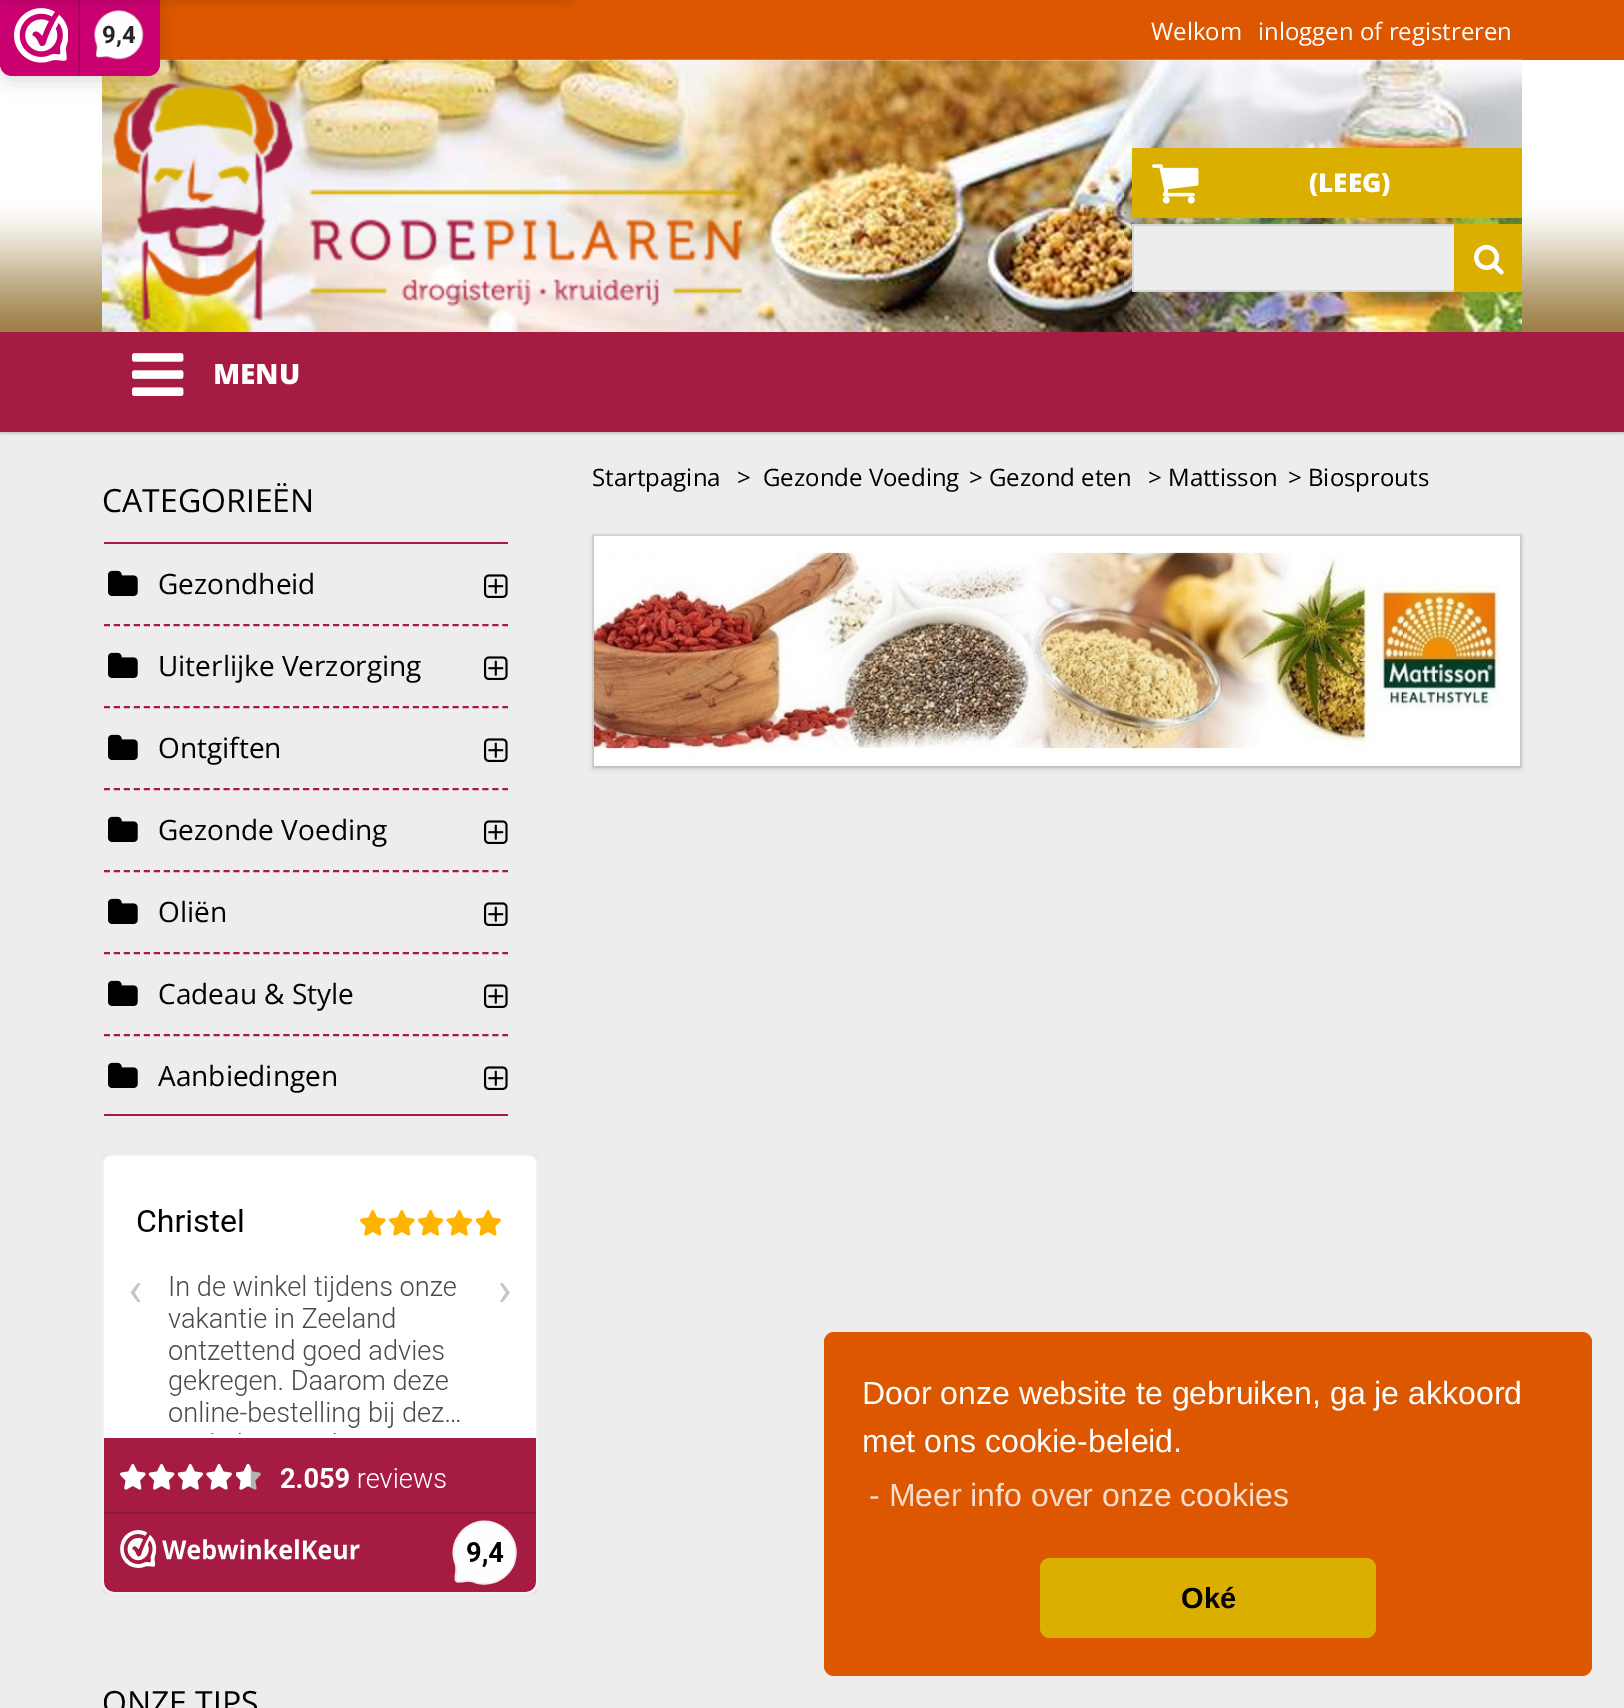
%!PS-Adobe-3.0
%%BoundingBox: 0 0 1624 1708
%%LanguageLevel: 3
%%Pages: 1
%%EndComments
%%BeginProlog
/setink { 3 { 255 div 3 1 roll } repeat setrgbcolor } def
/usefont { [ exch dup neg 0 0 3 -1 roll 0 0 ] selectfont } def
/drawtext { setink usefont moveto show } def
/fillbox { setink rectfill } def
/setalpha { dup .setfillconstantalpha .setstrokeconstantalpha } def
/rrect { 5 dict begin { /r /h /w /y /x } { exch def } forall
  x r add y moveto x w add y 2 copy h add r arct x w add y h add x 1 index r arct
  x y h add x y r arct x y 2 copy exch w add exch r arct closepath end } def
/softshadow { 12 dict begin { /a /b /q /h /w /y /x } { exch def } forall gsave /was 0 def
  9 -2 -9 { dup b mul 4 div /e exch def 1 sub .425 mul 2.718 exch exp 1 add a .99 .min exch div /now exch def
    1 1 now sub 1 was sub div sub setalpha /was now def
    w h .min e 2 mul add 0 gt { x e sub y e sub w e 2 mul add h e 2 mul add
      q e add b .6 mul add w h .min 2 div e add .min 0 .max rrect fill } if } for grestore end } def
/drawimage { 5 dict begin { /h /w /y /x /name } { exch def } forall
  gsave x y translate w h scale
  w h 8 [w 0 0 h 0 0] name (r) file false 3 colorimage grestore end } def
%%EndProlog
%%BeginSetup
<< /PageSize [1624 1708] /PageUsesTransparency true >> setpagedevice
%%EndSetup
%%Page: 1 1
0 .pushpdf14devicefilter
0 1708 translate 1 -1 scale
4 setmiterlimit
0 0 1624 1708 237 237 237 fillbox
0 0 0 setink
0 2 1624 432 0 1 0.15 softshadow
(assets/img3.rgb) 0 60 1624 272 drawimage
160 0 1464 60 221 87 0 fillbox
(assets/img4.rgb) 102 59 1420 273 drawimage
(assets/img5.rgb) 113 83 629 238 drawimage
0 0 0 setink
0 0 160 80 12 10 0.15 softshadow
203 0 112 setink
0 -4 moveto 160 -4 lineto 160 64 lineto 160 70.5 154.5 76 148 76 curveto 12 76 lineto 5.5 76 0 70.5 0 64 curveto closepath fill
(assets/img1.rgb) 14 8 54 55 drawimage
78 0 2 76 173 0 95 fillbox
(assets/img2.rgb) 94 10 50 50 drawimage
0 0 0 setink
0 -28 580 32 16 4 0.1 softshadow
(9,4) 102 43 /Roboto-Bold 24 39 38 38 drawtext
0 332 1624 100 165 27 66 fillbox
(Welkom) 1151 40 /OpenSans-Regular 24 255 255 255 drawtext
(inloggen of registreren) 1258 40 /OpenSans-Regular 24 255 255 255 drawtext
1132 148 390 70 219 175 0 fillbox
(assets/img6.rgb) 1152 164 47 40 drawimage
(\(LEEG\)) 1309 192 /OpenSans-ExtraBold 26 255 255 255 drawtext
1134 226 320 64 237 237 237 fillbox
1132 224 322 2 213 213 213 fillbox
1132 290 322 2 213 213 213 fillbox
1132 224 2 68 213 213 213 fillbox
1454 224 68 68 219 175 0 fillbox
(assets/img7.rgb) 1474 244 30 31 drawimage
(assets/img8.rgb) 132 353 52 43 drawimage
(MENU) 213 384 /OpenSans-ExtraBold 28 255 255 255 drawtext
(Startpagina) 592 486 /OpenSans-Regular 24 0 0 0 drawtext
(>) 737 486 /OpenSans-Regular 24 0 0 0 drawtext
(Gezonde Voeding) 763 486 /OpenSans-Regular 24 0 0 0 drawtext
(> Gezond eten) 969 486 /OpenSans-Regular 24 0 0 0 drawtext
(> Mattisson) 1148 486 /OpenSans-Regular 24 0 0 0 drawtext
(> Biosprouts) 1288 486 /OpenSans-Regular 24 0 0 0 drawtext
220 220 220 setink
2 setlinewidth
593 535 928 232 rectstroke
0 0 0 setink
594 538 926 230 0 3 0.19 softshadow
594 536 926 230 255 255 255 fillbox
(assets/img9.rgb) 594 552 908 204 drawimage
(CATEGORIEËN) 102 512 /OpenSans-Regular 32 0 0 0 drawtext
104 542 404 2 165 27 66 fillbox
104 1114 404 2 165 27 66 fillbox
[6 3.96] 0 setdash
104 625 moveto 508 625 lineto stroke
(assets/img10.rgb) 108 570 30 26 drawimage
(Gezondheid) 158 594 /OpenSans-Regular 28 0 0 0 drawtext
(assets/img11.rgb) 484 574 24 24 drawimage
165 27 66 setink
104 707 moveto 508 707 lineto stroke
(assets/img10.rgb) 108 652 30 26 drawimage
(Uiterlijke Verzorging) 158 676 /OpenSans-Regular 28 0 0 0 drawtext
(assets/img11.rgb) 484 656 24 24 drawimage
165 27 66 setink
104 789 moveto 508 789 lineto stroke
(assets/img10.rgb) 108 734 30 26 drawimage
(Ontgiften) 158 758 /OpenSans-Regular 28 0 0 0 drawtext
(assets/img11.rgb) 484 738 24 24 drawimage
165 27 66 setink
104 871 moveto 508 871 lineto stroke
(assets/img10.rgb) 108 816 30 26 drawimage
(Gezonde Voeding) 158 840 /OpenSans-Regular 28 0 0 0 drawtext
(assets/img11.rgb) 484 820 24 24 drawimage
165 27 66 setink
104 953 moveto 508 953 lineto stroke
(assets/img10.rgb) 108 898 30 26 drawimage
(Oliën) 158 922 /OpenSans-Regular 28 0 0 0 drawtext
(assets/img11.rgb) 484 902 24 24 drawimage
165 27 66 setink
104 1035 moveto 508 1035 lineto stroke
(assets/img10.rgb) 108 980 30 26 drawimage
(Cadeau & Style) 158 1004 /OpenSans-Regular 28 0 0 0 drawtext
(assets/img11.rgb) 484 984 24 24 drawimage
(assets/img10.rgb) 108 1062 30 26 drawimage
(Aanbiedingen) 158 1086 /OpenSans-Regular 28 0 0 0 drawtext
(assets/img11.rgb) 484 1066 24 24 drawimage
(assets/img12.rgb) 102 1154 436 440 drawimage
(ONZE TIPS) 102 1714 /OpenSans-Regular 32 0 0 0 drawtext
221 87 0 setink
824 1332 768 344 10 rrect fill
(Door onze website te gebruiken, ga je akkoord) 862 1404 /LiberationSans-Regular 32 255 255 255 drawtext
(met ons cookie-beleid.) 862 1452 /LiberationSans-Regular 32 255 255 255 drawtext
(- Meer info over onze cookies) 869 1506 /LiberationSans-Regular 32 248 221 204 drawtext
219 175 0 setink
1040 1558 336 80 10 rrect fill
(Oké) 1181 1608 /LiberationSans-Bold 29 0 0 0 drawtext
.poppdf14devicefilter showpage
%%EOF
